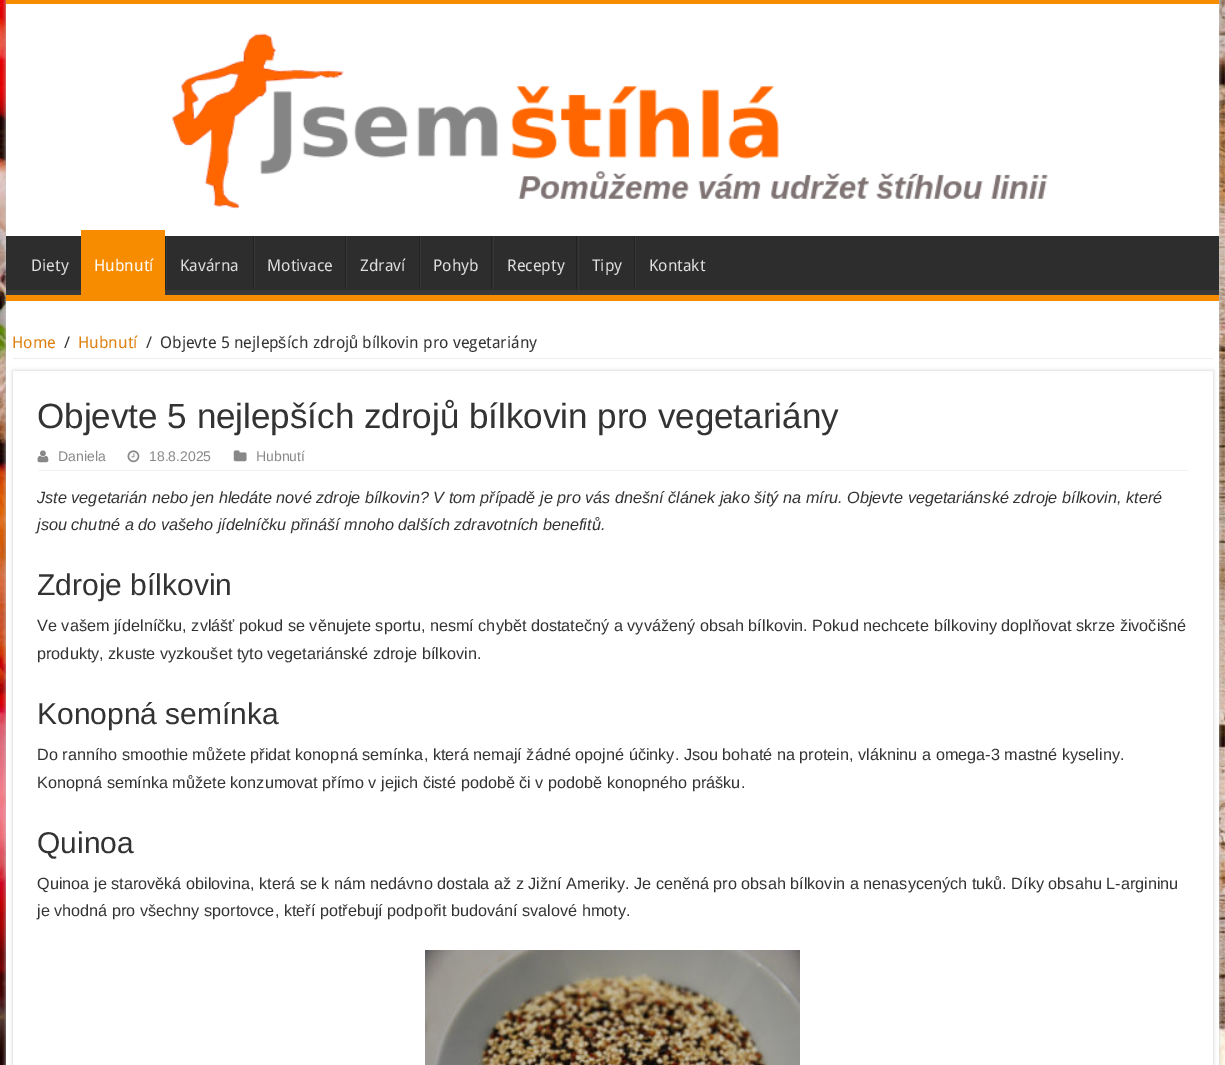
%!PS-Adobe-3.0
%%BoundingBox: 0 0 1225 1065
%%LanguageLevel: 3
%%Pages: 1
%%EndComments
%%BeginProlog
/setink { 3 { 255 div 3 1 roll } repeat setrgbcolor } def
/usefont { [ exch dup neg 0 0 3 -1 roll 0 0 ] selectfont } def
/drawtext { setink usefont moveto show } def
/fillbox { setink rectfill } def
/setalpha { dup .setfillconstantalpha .setstrokeconstantalpha } def
/rrect { 5 dict begin { /r /h /w /y /x } { exch def } forall
  x r add y moveto x w add y 2 copy h add r arct x w add y h add x 1 index r arct
  x y h add x y r arct x y 2 copy exch w add exch r arct closepath end } def
/softshadow { 12 dict begin { /a /b /q /h /w /y /x } { exch def } forall gsave /was 0 def
  9 -2 -9 { dup b mul 4 div /e exch def 1 sub .425 mul 2.718 exch exp 1 add a .99 .min exch div /now exch def
    1 1 now sub 1 was sub div sub setalpha /was now def
    w h .min e 2 mul add 0 gt { x e sub y e sub w e 2 mul add h e 2 mul add
      q e add b .6 mul add w h .min 2 div e add .min 0 .max rrect fill } if } for grestore end } def
/drawimage { 5 dict begin { /h /w /y /x /name } { exch def } forall
  gsave x y translate w h scale
  w h 8 [w 0 0 h 0 0] name (r) file false 3 colorimage grestore end } def
%%EndProlog
%%BeginSetup
<< /PageSize [1225 1065] /PageUsesTransparency true >> setpagedevice
%%EndSetup
%%Page: 1 1
0 .pushpdf14devicefilter
0 1065 translate 1 -1 scale
4 setmiterlimit
0 0 1225 1065 255 255 255 fillbox
(assets/img1.rgb) 1224 0 1 1065 drawimage
(assets/img2.rgb) 0 0 1225 1065 drawimage
202 202 202 setink
6 0 1213 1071 0 2 1 softshadow
6 4 1213 1061 255 255 255 fillbox
6 0 1213 4 248 140 0 fillbox
(assets/img3.rgb) 172 33 876 176 drawimage
6 236 1213 54 45 45 45 fillbox
gsave
6 236 1213 59 rectclip
57 57 57 setink
-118 112 moveto 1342 112 lineto 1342 419 lineto -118 419 lineto closepath 5 229 moveto 1218 229 lineto 1218 229 1219 229 1219 230 curveto 1219 289 lineto 1219 289 1218 290 1218 290 curveto 5 290 lineto 4 290 4 289 4 289 curveto 4 230 lineto 4 229 4 229 5 229 curveto closepath eofill
grestore
6 295 1213 6 248 140 0 fillbox
(Diety) 31 271 /DroidSans-Regular 16.25 221 221 221 drawtext
81 230 84 65 248 140 0 fillbox
(Hubnutí) 94 271 /DroidSans-Regular 16.25 255 255 255 drawtext
165 236 1 53 34 34 34 fillbox
166 236 1 53 56 56 56 fillbox
(Kavárna) 180 271 /DroidSans-Regular 16.25 221 221 221 drawtext
253 236 1 53 34 34 34 fillbox
254 236 1 53 56 56 56 fillbox
(Motivace) 267 271 /DroidSans-Regular 16.25 221 221 221 drawtext
345 236 1 53 34 34 34 fillbox
346 236 1 53 56 56 56 fillbox
(Zdraví) 360 271 /DroidSans-Regular 16.25 221 221 221 drawtext
419 236 1 53 34 34 34 fillbox
420 236 1 53 56 56 56 fillbox
(Pohyb) 433 271 /DroidSans-Regular 16.25 221 221 221 drawtext
491 236 1 53 34 34 34 fillbox
493 236 1 53 56 56 56 fillbox
(Recepty) 507 271 /DroidSans-Regular 16.25 221 221 221 drawtext
576 236 1 53 34 34 34 fillbox
578 236 1 53 56 56 56 fillbox
(Tipy) 592 271 /DroidSans-Regular 16.25 221 221 221 drawtext
634 236 1 53 34 34 34 fillbox
635 236 1 53 56 56 56 fillbox
(Kontakt) 649 271 /DroidSans-Regular 16.25 221 221 221 drawtext
13 358 1200 1 238 238 238 fillbox
(Home) 12 348 /DroidSans-Regular 16.25 221 130 17 drawtext
(/) 64 348 /DroidSans-Regular 16.25 51 51 51 drawtext
(Hubnutí) 78 348 /DroidSans-Regular 16.25 221 130 17 drawtext
(/) 146 348 /DroidSans-Regular 16.25 51 51 51 drawtext
(Objevte 5 nejlep) 160 348 /DroidSans-Regular 16.25 51 51 51 drawtext
(š) 278 348 /LiberationSans-Regular 16.25 51 51 51 drawtext
(ích zdroj) 287 348 /DroidSans-Regular 16.25 51 51 51 drawtext
(ů) 349 348 /LiberationSans-Regular 16.25 51 51 51 drawtext
(bílkovin pro vegetariány) 362 348 /DroidSans-Regular 16.25 51 51 51 drawtext
202 202 202 setink
13 371 1200 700 0 2 1 softshadow
13 371 1200 694 255 255 255 fillbox
(Objevte 5 nejlepších zdrojů bílkovin pro vegetariány) 37 428 /LiberationSans-Regular 35 51 51 51 drawtext
38 470 1150 1 242 242 242 fillbox
(assets/img4.rgb) 37 450 12 13 drawimage
(Daniela) 58 461 /LiberationSans-Regular 14 136 136 136 drawtext
(assets/img5.rgb) 127 450 13 13 drawimage
(18.8.2025) 149 461 /LiberationSans-Regular 14 136 136 136 drawtext
(assets/img6.rgb) 233 450 14 12 drawimage
(Hubnutí) 256 461 /LiberationSans-Regular 14 136 136 136 drawtext
(Jste vegetarián nebo jen hledáte nové zdroje bílkovin? V tom případě je pro vás dnešní článek jako šitý na míru. Objevte vegetariánské zdroje bílkovin, které) 37 503 /LiberationSans-Italic 16.25 51 51 51 drawtext
(jsou chutné a do vašeho jídelníčku přináší mnoho dalších zdravotních benefitů.) 37 530 /LiberationSans-Italic 16.25 51 51 51 drawtext
(Zdroje bílkovin) 37 595 /LiberationSans-Regular 30 51 51 51 drawtext
(Ve vašem jídelníčku, zvlášť pokud se věnujete sportu, nesmí chybět dostatečný a vyvážený obsah bílkovin. Pokud nechcete bílkoviny doplňovat skrze živočišné) 37 631 /LiberationSans-Regular 16.25 51 51 51 drawtext
(produkty, zkuste vyzkoušet tyto vegetariánské zdroje bílkovin.) 37 659 /LiberationSans-Regular 16.25 51 51 51 drawtext
(Konopná semínka) 37 724 /LiberationSans-Regular 30 51 51 51 drawtext
(Do ranního smoothie můžete přidat konopná semínka, která nemají žádné opojné účinky. Jsou bohaté na protein, vlákninu a omega-3 mastné kyseliny.) 37 760 /LiberationSans-Regular 16.25 51 51 51 drawtext
(Konopná semínka můžete konzumovat přímo v jejich čisté podobě či v podobě konopného prášku.) 37 788 /LiberationSans-Regular 16.25 51 51 51 drawtext
(Quinoa) 37 853 /LiberationSans-Regular 30 51 51 51 drawtext
(Quinoa je starověká obilovina, která se k nám nedávno dostala až z Jižní Ameriky. Je ceněná pro obsah bílkovin a nenasycených tuků. Díky obsahu L-argininu) 37 889 /LiberationSans-Regular 16.25 51 51 51 drawtext
(je vhodná pro všechny sportovce, kteří potřebují podpořit budování svalové hmoty.) 37 916 /LiberationSans-Regular 16.25 51 51 51 drawtext
(assets/img7.rgb) 425 950 375 115 drawimage
.poppdf14devicefilter showpage
%%EOF
